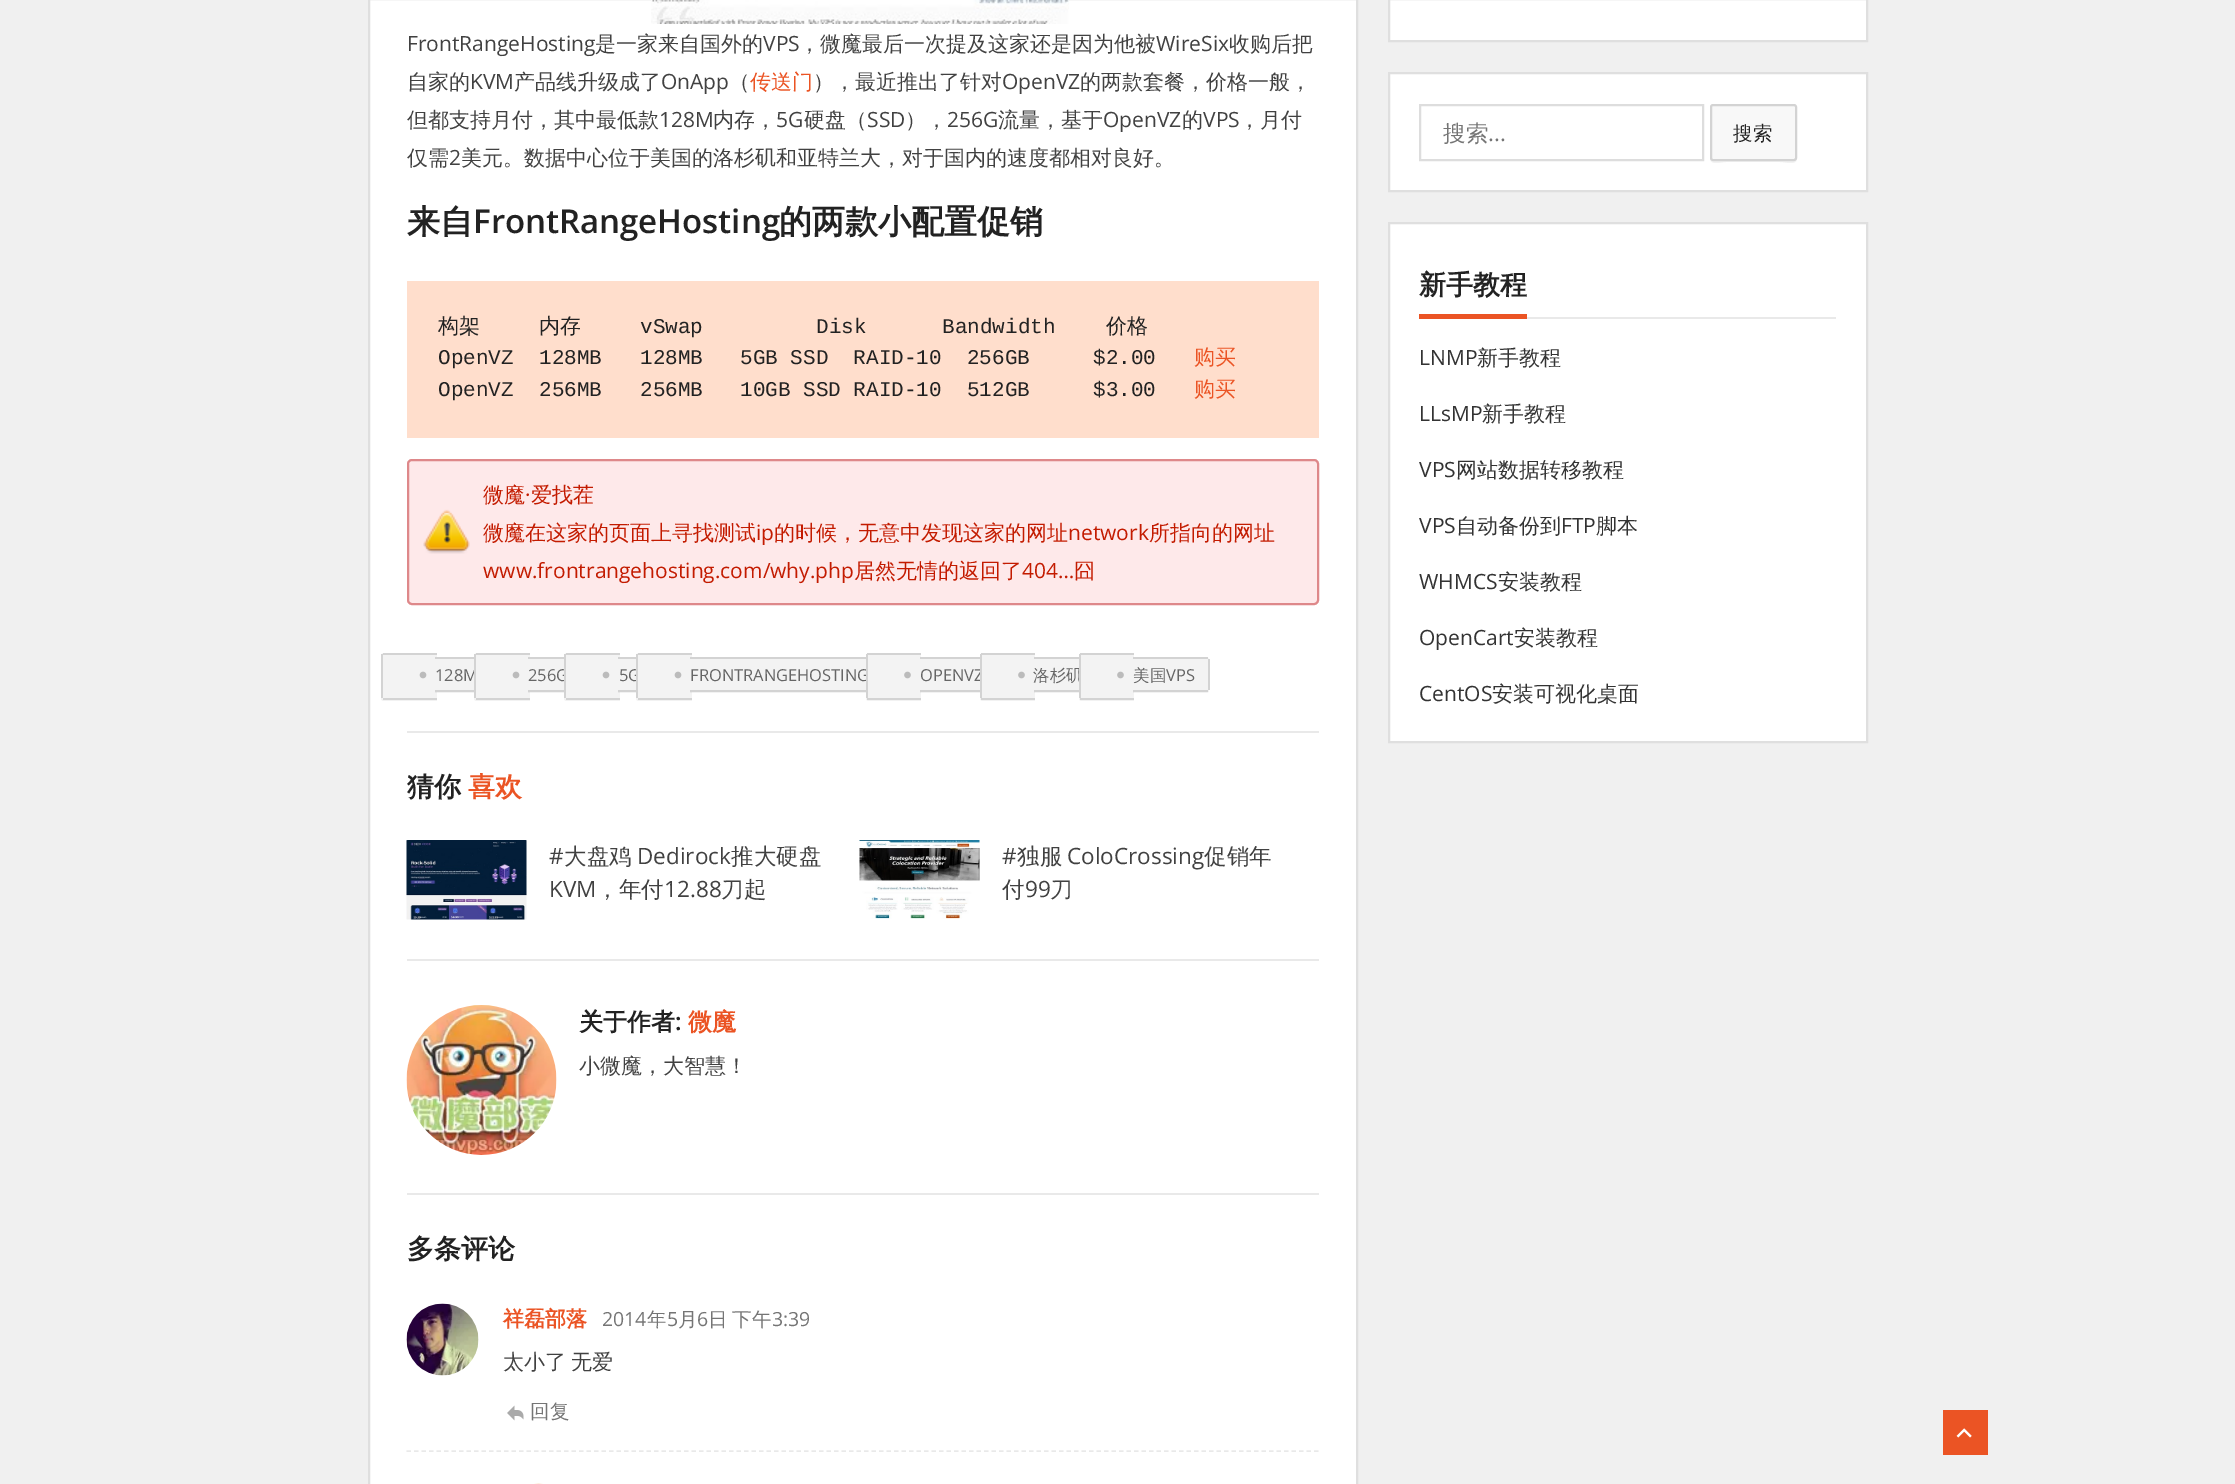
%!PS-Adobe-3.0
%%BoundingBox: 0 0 2235 1484
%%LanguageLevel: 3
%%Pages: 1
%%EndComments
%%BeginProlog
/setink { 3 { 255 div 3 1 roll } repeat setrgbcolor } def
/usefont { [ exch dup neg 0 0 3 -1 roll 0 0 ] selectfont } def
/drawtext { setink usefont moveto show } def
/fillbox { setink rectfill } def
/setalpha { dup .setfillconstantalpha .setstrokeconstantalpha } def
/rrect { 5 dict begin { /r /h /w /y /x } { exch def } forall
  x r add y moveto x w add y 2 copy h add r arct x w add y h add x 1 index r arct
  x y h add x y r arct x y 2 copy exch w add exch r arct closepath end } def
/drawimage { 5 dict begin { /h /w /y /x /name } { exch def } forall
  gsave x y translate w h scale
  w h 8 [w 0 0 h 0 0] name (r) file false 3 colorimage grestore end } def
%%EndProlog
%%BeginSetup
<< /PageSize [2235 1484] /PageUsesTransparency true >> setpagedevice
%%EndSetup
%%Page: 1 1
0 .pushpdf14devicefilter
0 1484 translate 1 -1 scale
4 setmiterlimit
0 0 2235 1484 240 240 240 fillbox
255 255 255 setink
369 -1 moveto 1357 -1 lineto 1357 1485 lineto 369 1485 lineto closepath gsave fill grestore
223 223 223 setink
2 setlinewidth
stroke
(assets/img1.rgb) 651 0 418 24 drawimage
(FrontRangeHosting) 407 51 /OpenSans-Regular 21 65 65 65 drawtext
(是一家来自国外的) 595 51 /WenQuanYiZenHei-Medium 21 65 65 65 drawtext
(VPS) 763 51 /OpenSans-Regular 21 65 65 65 drawtext
(，微魔最后一次提及这家还是因为他被) 799 51 /WenQuanYiZenHei-Medium 21 65 65 65 drawtext
(WireSix) 1156 51 /OpenSans-Regular 21 65 65 65 drawtext
(收购后把) 1229 51 /WenQuanYiZenHei-Medium 21 65 65 65 drawtext
(自家的) 407 89 /WenQuanYiZenHei-Medium 21 65 65 65 drawtext
(KVM) 470 89 /OpenSans-Regular 21 65 65 65 drawtext
(产品线升级成了) 514 89 /WenQuanYiZenHei-Medium 21 65 65 65 drawtext
(OnApp) 661 89 /OpenSans-Regular 21 65 65 65 drawtext
(（) 729 89 /WenQuanYiZenHei-Medium 21 65 65 65 drawtext
(传送门) 750 89 /WenQuanYiZenHei-Medium 21 235 84 36 drawtext
(），最近推出了针对) 813 89 /WenQuanYiZenHei-Medium 21 65 65 65 drawtext
(OpenVZ) 1002 89 /OpenSans-Regular 21 65 65 65 drawtext
(的两款套餐，价格一般，) 1080 89 /WenQuanYiZenHei-Medium 21 65 65 65 drawtext
(但都支持月付，其中最低款) 407 127 /WenQuanYiZenHei-Medium 21 65 65 65 drawtext
(128M) 659 127 /OpenSans-Regular 21 65 65 65 drawtext
(内存，) 713 127 /WenQuanYiZenHei-Medium 21 65 65 65 drawtext
(5G) 776 127 /OpenSans-Regular 21 65 65 65 drawtext
(硬盘（) 804 127 /WenQuanYiZenHei-Medium 21 65 65 65 drawtext
(SSD) 867 127 /OpenSans-Regular 21 65 65 65 drawtext
(），) 905 127 /WenQuanYiZenHei-Medium 21 65 65 65 drawtext
(256G) 947 127 /OpenSans-Regular 21 65 65 65 drawtext
(流量，基于) 998 127 /WenQuanYiZenHei-Medium 21 65 65 65 drawtext
(OpenVZ) 1103 127 /OpenSans-Regular 21 65 65 65 drawtext
(的) 1182 127 /WenQuanYiZenHei-Medium 21 65 65 65 drawtext
(VPS) 1203 127 /OpenSans-Regular 21 65 65 65 drawtext
(，月付) 1239 127 /WenQuanYiZenHei-Medium 21 65 65 65 drawtext
(仅需) 407 165 /WenQuanYiZenHei-Medium 21 65 65 65 drawtext
(2) 449 165 /OpenSans-Regular 21 65 65 65 drawtext
(美元。数据中心位于美国的洛杉矶和亚特兰大，对于国内的速度都相对良好。) 461 165 /WenQuanYiZenHei-Medium 21 65 65 65 drawtext
(来自) 407 233 /WenQuanYiZenHei-Bold 33 34 34 34 drawtext
(FrontRangeHosting) 473 233 /OpenSans-SemiBold 33 34 34 34 drawtext
(的两款小配置促销) 779 233 /WenQuanYiZenHei-Bold 33 34 34 34 drawtext
407 281 912 157 255 222 204 fillbox
(构架) 438 333 /WenQuanYiZenHei-Medium 21 34 34 34 drawtext
(内存) 539 333 /WenQuanYiZenHei-Medium 21 34 34 34 drawtext
(vSwap) 640 333 /LiberationMono-Regular 21 34 34 34 drawtext
(Disk      Bandwidth) 816 333 /LiberationMono-Regular 21 34 34 34 drawtext
(价格) 1106 333 /WenQuanYiZenHei-Medium 21 34 34 34 drawtext
(OpenVZ) 438 364 /LiberationMono-Regular 21 34 34 34 drawtext
(128MB) 539 364 /LiberationMono-Regular 21 34 34 34 drawtext
(128MB) 640 364 /LiberationMono-Regular 21 34 34 34 drawtext
(5GB SSD  RAID-10  256GB) 740 364 /LiberationMono-Regular 21 34 34 34 drawtext
($2.00) 1093 364 /LiberationMono-Regular 21 34 34 34 drawtext
(购买) 1194 364 /WenQuanYiZenHei-Medium 21 235 84 36 drawtext
(OpenVZ) 438 396 /LiberationMono-Regular 21 34 34 34 drawtext
(256MB) 539 396 /LiberationMono-Regular 21 34 34 34 drawtext
(256MB) 640 396 /LiberationMono-Regular 21 34 34 34 drawtext
(10GB SSD RAID-10  512GB) 740 396 /LiberationMono-Regular 21 34 34 34 drawtext
($3.00) 1093 396 /LiberationMono-Regular 21 34 34 34 drawtext
(购买) 1194 396 /WenQuanYiZenHei-Medium 21 235 84 36 drawtext
254 233 234 setink
407 459 912 146 5 rrect fill
(assets/img2.rgb) 423 509 47 45 drawimage
222 136 138 setink
408 460 910 144 4 rrect stroke
(微魔) 483 502 /WenQuanYiZenHei-Medium 21 195 27 0 drawtext
(·) 525 502 /OpenSans-Regular 21 195 27 0 drawtext
(爱找茬) 531 502 /WenQuanYiZenHei-Medium 21 195 27 0 drawtext
(微魔在这家的页面上寻找测试) 483 540 /WenQuanYiZenHei-Medium 21 195 27 0 drawtext
(ip) 756 540 /OpenSans-Regular 21 195 27 0 drawtext
(的时候，无意中发现这家的网址) 774 540 /WenQuanYiZenHei-Medium 21 195 27 0 drawtext
(network) 1068 540 /OpenSans-Regular 21 195 27 0 drawtext
(所指向的网址) 1149 540 /WenQuanYiZenHei-Medium 21 195 27 0 drawtext
(www.frontrangehosting.com/why.php) 483 578 /OpenSans-Regular 21 195 27 0 drawtext
(居然无情的返回了) 854 578 /WenQuanYiZenHei-Medium 21 195 27 0 drawtext
(404…) 1022 578 /OpenSans-Regular 21 195 27 0 drawtext
(囧) 1074 578 /WenQuanYiZenHei-Medium 21 195 27 0 drawtext
242 242 242 setink
381 696 moveto 381 698 lineto 381 700 382 701 384 701 curveto 437 701 lineto 437 654 lineto 436 654 lineto 436 699 lineto 384 699 lineto 382 699 381 698 381 696 curveto closepath fill
243 243 243 setink
384 653 moveto 437 653 lineto 437 699 lineto 384 699 lineto 382.5 699 381 697.5 381 696 curveto 381 656 lineto 381 654.5 382.5 653 384 653 curveto closepath fill
383 653 54 2 211 211 211 fillbox
383 698 54 2 211 211 211 fillbox
381 654 2 44 211 211 211 fillbox
0.05 setalpha
0 0 0 setink
435 692 moveto 435 693 lineto 489 693 lineto 491 693 492 692 492 690 curveto 492 688 lineto 492 690 491 692 489 692 curveto closepath fill
1 setalpha
437 659 37 31 243 243 243 fillbox
435 657 39 2 211 211 211 fillbox
435 690 39 2 211 211 211 fillbox
(assets/img3.rgb) 419 671 8 8 drawimage
(128M) 435 681 /OpenSans-Regular 16.5 102 102 102 drawtext
242 242 242 setink
474 696 moveto 474 698 lineto 474 700 475 701 477 701 curveto 530 701 lineto 530 654 lineto 530 699 lineto 477 699 lineto 475 699 474 698 474 696 curveto closepath fill
243 243 243 setink
477 653 moveto 530 653 lineto 530 699 lineto 477 699 lineto 475.5 699 474 697.5 474 696 curveto 474 656 lineto 474 654.5 475.5 653 477 653 curveto closepath fill
476 653 54 2 211 211 211 fillbox
476 698 54 2 211 211 211 fillbox
474 654 2 44 211 211 211 fillbox
0.05 setalpha
0 0 0 setink
528 692 moveto 528 693 lineto 579 693 lineto 581 693 582 692 582 690 curveto 582 688 lineto 582 690 581 692 579 692 curveto closepath fill
1 setalpha
530 659 34 31 243 243 243 fillbox
528 657 36 2 211 211 211 fillbox
528 690 36 2 211 211 211 fillbox
(assets/img3.rgb) 512 671 8 8 drawimage
(256G) 528 681 /OpenSans-Regular 16.5 102 102 102 drawtext
242 242 242 setink
564 696 moveto 564 698 lineto 564 700 565 701 567 701 curveto 620 701 lineto 620 654 lineto 620 699 lineto 567 699 lineto 565 699 564 698 564 696 curveto closepath fill
243 243 243 setink
567 653 moveto 620 653 lineto 620 699 lineto 567 699 lineto 565.5 699 564 697.5 564 696 curveto 564 656 lineto 564 654.5 565.5 653 567 653 curveto closepath fill
566 653 54 2 211 211 211 fillbox
566 698 54 2 211 211 211 fillbox
564 654 2 44 211 211 211 fillbox
0.05 setalpha
0 0 0 setink
618 691.5 moveto 618 693 lineto 651 693 lineto 652.5 693 654 691.5 654 690 curveto 654 688.5 lineto 654 690 652.5 691.5 651 691.5 curveto closepath fill
1 setalpha
620 659 16 31 243 243 243 fillbox
618 657 18 2 211 211 211 fillbox
618 690 18 2 211 211 211 fillbox
(assets/img3.rgb) 602 671 8 8 drawimage
(5G) 619 681 /OpenSans-Regular 16.5 102 102 102 drawtext
242 242 242 setink
636 696 moveto 636 698 lineto 636 700 637 701 639 701 curveto 692 701 lineto 692 654 lineto 692 699 lineto 639 699 lineto 637 699 636 698 636 696 curveto closepath fill
243 243 243 setink
639 653 moveto 692 653 lineto 692 699 lineto 639 699 lineto 637.5 699 636 697.5 636 696 curveto 636 656 lineto 636 654.5 637.5 653 639 653 curveto closepath fill
638 653 54 2 211 211 211 fillbox
638 698 54 2 211 211 211 fillbox
636 654 2 44 211 211 211 fillbox
0.05 setalpha
0 0 0 setink
690 692 moveto 690 693 lineto 881 693 lineto 883 693 884 692 884 690 curveto 884 662 lineto 884 660 lineto 884 688 lineto 884 690 882 692 880 692 curveto closepath fill
1 setalpha
692 659 174 31 243 243 243 fillbox
690 657 176 2 211 211 211 fillbox
690 690 176 2 211 211 211 fillbox
(assets/img3.rgb) 674 671 8 8 drawimage
(FRONTRANGEHOSTING) 690 681 /OpenSans-Regular 16.5 102 102 102 drawtext
242 242 242 setink
866 698 moveto 866 700 867 701 869 701 curveto 921 701 lineto 921 699 lineto 868 699 lineto closepath fill
243 243 243 setink
869 653 moveto 921 653 lineto 921 699 lineto 869 699 lineto 867.5 699 866 697.5 866 696 curveto 866 656 lineto 866 654.5 867.5 653 869 653 curveto closepath fill
867 653 54 2 211 211 211 fillbox
867 698 54 2 211 211 211 fillbox
866 654 2 44 211 211 211 fillbox
0.05 setalpha
0 0 0 setink
920 692 moveto 920 693 lineto 995 693 lineto 997 693 998 692 998 690 curveto 998 662 lineto 998 660 lineto 998 688 lineto 998 690 996 692 994 692 curveto closepath fill
1 setalpha
921 659 59 31 243 243 243 fillbox
920 657 60 2 211 211 211 fillbox
920 690 60 2 211 211 211 fillbox
(assets/img4.rgb) 904 671 7 8 drawimage
(OPENVZ) 920 681 /OpenSans-Regular 16.5 102 102 102 drawtext
242 242 242 setink
980 698 moveto 980 700 981 701 983 701 curveto 1035 701 lineto 1035 699 lineto 982 699 lineto closepath fill
243 243 243 setink
983 653 moveto 1035 653 lineto 1035 699 lineto 983 699 lineto 981.5 699 980 697.5 980 696 curveto 980 656 lineto 980 654.5 981.5 653 983 653 curveto closepath fill
981 653 54 2 211 211 211 fillbox
981 698 54 2 211 211 211 fillbox
980 654 2 44 211 211 211 fillbox
0.05 setalpha
0 0 0 setink
1034 692 moveto 1034 693 lineto 1084 693 lineto 1101 693 1097 694 1097 676 curveto 1097 673 1098 663 1096 660 curveto 1096 688 lineto 1096 690 1095 692 1094 692 curveto closepath fill
1 setalpha
1035 659 44 31 243 243 243 fillbox
1034 657 45 2 211 211 211 fillbox
1034 690 45 2 211 211 211 fillbox
(assets/img4.rgb) 1018 671 7 8 drawimage
(洛杉矶) 1033 681 /WenQuanYiZenHei-Medium 16.5 102 102 102 drawtext
242 242 242 setink
1079 698 moveto 1079 700 1080 701 1082 701 curveto 1134 701 lineto 1134 699 lineto 1081 699 lineto closepath fill
243 243 243 setink
1082 653 moveto 1134 653 lineto 1134 699 lineto 1082 699 lineto 1080.5 699 1079 697.5 1079 696 curveto 1079 656 lineto 1079 654.5 1080.5 653 1082 653 curveto closepath fill
1080 653 54 2 211 211 211 fillbox
1080 698 54 2 211 211 211 fillbox
1079 654 2 44 211 211 211 fillbox
0.05 setalpha
0 0 0 setink
1133 692 moveto 1133 693 lineto 1206 693 lineto 1208 693 1209 692 1209 690 curveto 1209 688 lineto 1209 690 1208 692 1206 692 curveto closepath fill
1 setalpha
243 243 243 setink
1133 657 moveto 1206 657 lineto 1207.5 657 1209 658.5 1209 660 curveto 1209 689 lineto 1209 690.5 1207.5 692 1206 692 curveto 1133 692 lineto closepath fill
1133 657 75 2 211 211 211 fillbox
1208 659 2 31 211 211 211 fillbox
1133 690 75 2 211 211 211 fillbox
(assets/img4.rgb) 1117 671 7 8 drawimage
(美国) 1133 681 /WenQuanYiZenHei-Medium 16.5 102 102 102 drawtext
(VPS) 1166 681 /OpenSans-Regular 16.5 102 102 102 drawtext
407 731 912 2 233 233 233 fillbox
(猜你) 407 796 /WenQuanYiZenHei-Bold 27 34 34 34 drawtext
(喜欢) 468 796 /WenQuanYiZenHei-Bold 27 235 84 36 drawtext
(assets/img5.rgb) 406 840 121 80 drawimage
(#) 549 864 /OpenSans-Regular 22.5 65 65 65 drawtext
(大盘鸡) 564 864 /WenQuanYiZenHei-Medium 22.5 65 65 65 drawtext
(Dedirock) 637 864 /OpenSans-Regular 22.5 65 65 65 drawtext
(推大硬盘) 731 864 /WenQuanYiZenHei-Medium 22.5 65 65 65 drawtext
(KVM) 549 897 /OpenSans-Regular 22.5 65 65 65 drawtext
(，年付) 596 897 /WenQuanYiZenHei-Medium 22.5 65 65 65 drawtext
(12.88) 664 897 /OpenSans-Regular 22.5 65 65 65 drawtext
(刀起) 721 897 /WenQuanYiZenHei-Medium 22.5 65 65 65 drawtext
(assets/img6.rgb) 859 840 121 79 drawimage
(#) 1002 864 /OpenSans-Regular 22.5 65 65 65 drawtext
(独服) 1017 864 /WenQuanYiZenHei-Medium 22.5 65 65 65 drawtext
(ColoCrossing) 1067 864 /OpenSans-Regular 22.5 65 65 65 drawtext
(促销年) 1204 864 /WenQuanYiZenHei-Medium 22.5 65 65 65 drawtext
(付) 1002 897 /WenQuanYiZenHei-Medium 22.5 65 65 65 drawtext
(99) 1025 897 /OpenSans-Regular 22.5 65 65 65 drawtext
(刀) 1050 897 /WenQuanYiZenHei-Medium 22.5 65 65 65 drawtext
407 959 912 2 233 233 233 fillbox
(assets/img7.rgb) 406 1005 151 150 drawimage
(关于作者) 579 1030 /WenQuanYiZenHei-Bold 24 34 34 34 drawtext
(:) 675 1030 /OpenSans-SemiBold 24 34 34 34 drawtext
(微魔) 688 1030 /WenQuanYiZenHei-Bold 24 235 84 36 drawtext
(小微魔，大智慧！) 579 1073 /WenQuanYiZenHei-Medium 21 65 65 65 drawtext
407 1193 912 2 233 233 233 fillbox
(多条评论) 407 1258 /WenQuanYiZenHei-Bold 27 34 34 34 drawtext
233 233 233 setink
1.5 setlinewidth
[4.5 3] 0 setdash
406.5 1451 moveto 1318.5 1451 lineto stroke
(assets/img8.rgb) 406 1303 73 73 drawimage
(祥磊部落) 503 1326 /WenQuanYiZenHei-Bold 21 235 84 36 drawtext
(2014) 602 1326 /OpenSans-Regular 19.5 117 117 117 drawtext
(年) 647 1326 /WenQuanYiZenHei-Medium 19.5 117 117 117 drawtext
(5) 667 1326 /OpenSans-Regular 19.5 117 117 117 drawtext
(月) 678 1326 /WenQuanYiZenHei-Medium 19.5 117 117 117 drawtext
(6) 697 1326 /OpenSans-Regular 19.5 117 117 117 drawtext
/WenQuanYiZenHei-Medium 19.5 usefont
708 1326 moveto -1 0 32 (日 下午) widthshow
(3:39) 772 1326 /OpenSans-Regular 19.5 117 117 117 drawtext
/WenQuanYiZenHei-Medium 21 usefont
65 65 65 setink
503 1369 moveto -1 0 32 (太小了 无爱) widthshow
(assets/img9.rgb) 507 1405 17 16 drawimage
(回复) 530 1418 /WenQuanYiZenHei-Medium 19.5 117 117 117 drawtext
(assets/img10.rgb) 534 1483 9 1 drawimage
255 255 255 setink
1389 -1 moveto 1867 -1 lineto 1867 41 lineto 1389 41 lineto closepath gsave fill grestore
223 223 223 setink
2 setlinewidth
[] 0 setdash
stroke
255 255 255 setink
1389 73 moveto 1867 73 lineto 1867 191 lineto 1389 191 lineto closepath gsave fill grestore
223 223 223 setink
stroke
221 221 221 setink
1420 105 283 55 rectstroke
(搜索) 1443 141 /WenQuanYiZenHei-Medium 22.5 117 117 117 drawtext
(...) 1488 141 /OpenSans-Regular 22.5 117 117 117 drawtext
242 242 242 setink
1710 158 moveto 1710 166 1721 162 1726 162 curveto 1780 162 lineto 1786 162 1797 166 1797 158 curveto 1797 159 1796 160 1794 160 curveto 1713 160 lineto 1711 160 1710 159 1710 158 curveto closepath fill
248 248 248 setink
1711 105 85 55 2 rrect gsave fill grestore
211 211 211 setink
stroke
(搜索) 1733 140 /WenQuanYiZenHei-Medium 19.5 34 34 34 drawtext
255 255 255 setink
1389 223 moveto 1867 223 lineto 1867 742 lineto 1389 742 lineto closepath gsave fill grestore
223 223 223 setink
stroke
1527 317 309 2 233 233 233 fillbox
1419 314 108 5 235 84 36 fillbox
(新手教程) 1419 294 /WenQuanYiZenHei-Bold 27 34 34 34 drawtext
(LNMP) 1419 365 /OpenSans-Regular 21 51 51 51 drawtext
(新手教程) 1477 365 /WenQuanYiZenHei-Medium 21 51 51 51 drawtext
(LLsMP) 1419 421 /OpenSans-Regular 21 51 51 51 drawtext
(新手教程) 1482 421 /WenQuanYiZenHei-Medium 21 51 51 51 drawtext
(VPS) 1419 477 /OpenSans-Regular 21 51 51 51 drawtext
(网站数据转移教程) 1456 477 /WenQuanYiZenHei-Medium 21 51 51 51 drawtext
(VPS) 1419 533 /OpenSans-Regular 21 51 51 51 drawtext
(自动备份到) 1456 533 /WenQuanYiZenHei-Medium 21 51 51 51 drawtext
(FTP) 1561 533 /OpenSans-Regular 21 51 51 51 drawtext
(脚本) 1596 533 /WenQuanYiZenHei-Medium 21 51 51 51 drawtext
(WHMCS) 1419 589 /OpenSans-Regular 21 51 51 51 drawtext
(安装教程) 1498 589 /WenQuanYiZenHei-Medium 21 51 51 51 drawtext
(OpenCart) 1419 645 /OpenSans-Regular 21 51 51 51 drawtext
(安装教程) 1514 645 /WenQuanYiZenHei-Medium 21 51 51 51 drawtext
(CentOS) 1419 701 /OpenSans-Regular 21 51 51 51 drawtext
(安装可视化桌面) 1492 701 /WenQuanYiZenHei-Medium 21 51 51 51 drawtext
1943 1410 45 45 235 84 36 fillbox
(assets/img11.rgb) 1956 1428 16 10 drawimage
.poppdf14devicefilter showpage
%%EOF
